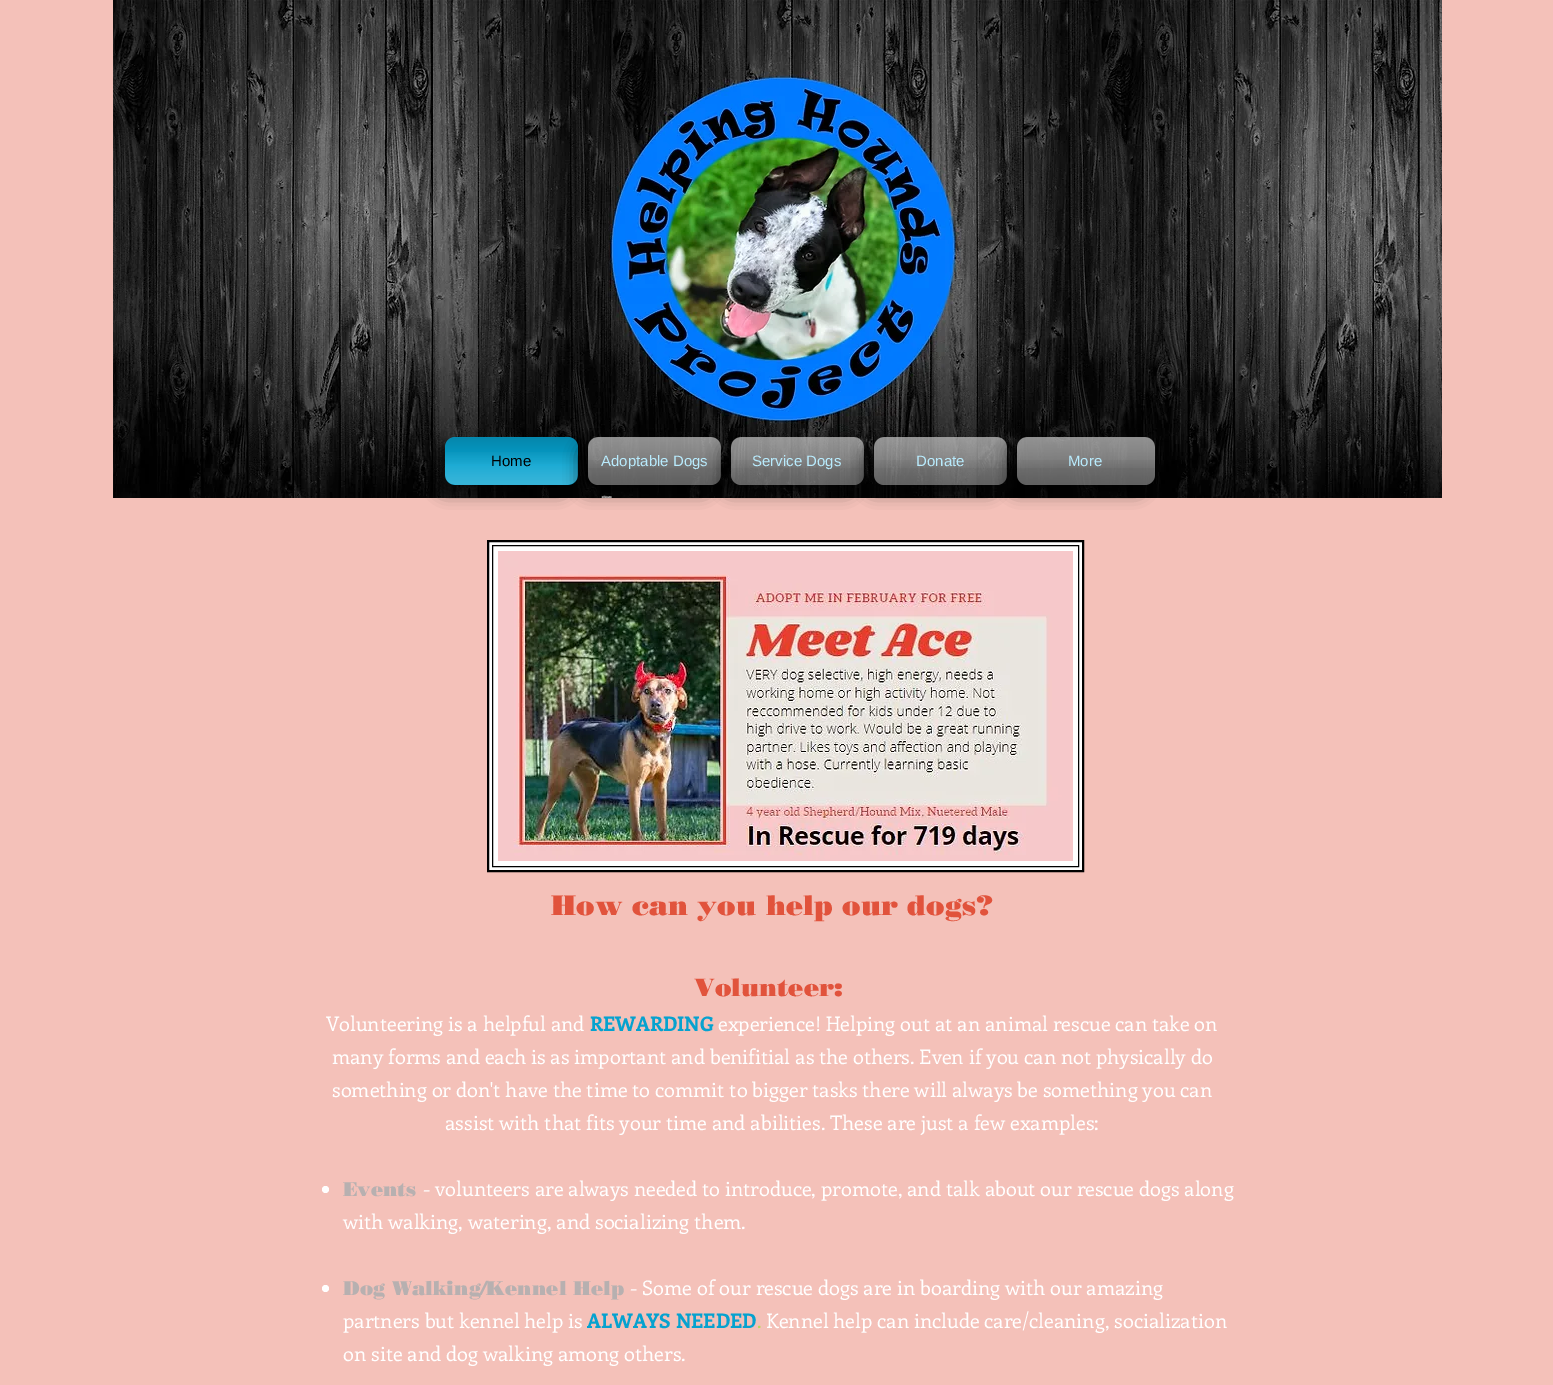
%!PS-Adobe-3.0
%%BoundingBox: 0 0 1553 1385
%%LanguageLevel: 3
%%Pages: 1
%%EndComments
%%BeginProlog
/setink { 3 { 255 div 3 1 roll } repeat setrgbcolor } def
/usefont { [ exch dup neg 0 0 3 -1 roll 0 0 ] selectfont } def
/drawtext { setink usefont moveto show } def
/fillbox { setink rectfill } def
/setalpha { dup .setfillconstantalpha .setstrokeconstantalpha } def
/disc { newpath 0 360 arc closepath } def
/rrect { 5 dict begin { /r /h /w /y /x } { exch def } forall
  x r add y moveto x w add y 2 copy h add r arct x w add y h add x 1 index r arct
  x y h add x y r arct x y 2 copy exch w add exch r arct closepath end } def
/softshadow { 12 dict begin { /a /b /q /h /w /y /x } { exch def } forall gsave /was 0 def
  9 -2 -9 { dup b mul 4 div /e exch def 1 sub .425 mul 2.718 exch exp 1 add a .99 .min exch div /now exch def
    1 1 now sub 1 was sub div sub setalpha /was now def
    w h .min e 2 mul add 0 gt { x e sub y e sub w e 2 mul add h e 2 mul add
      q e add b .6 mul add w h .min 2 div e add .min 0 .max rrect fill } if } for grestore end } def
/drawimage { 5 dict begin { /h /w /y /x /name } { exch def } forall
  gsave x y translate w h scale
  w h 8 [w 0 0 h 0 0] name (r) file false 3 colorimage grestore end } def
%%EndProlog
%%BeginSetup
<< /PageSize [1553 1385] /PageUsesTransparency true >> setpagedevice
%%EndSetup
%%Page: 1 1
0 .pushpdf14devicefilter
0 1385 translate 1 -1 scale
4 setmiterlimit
0 0 1553 1385 244 193 185 fillbox
(assets/img1.rgb) 113 0 1329 498 drawimage
0 0 0 setink
436 445 133 48 10 7.5 0.6 softshadow
6 162 207 setink
445 437 133 48 10 rrect fill
(assets/img2.rgb) 445 437 133 26 drawimage
(assets/img3.rgb) 445 452 133 33 drawimage
(Home) 491 466 /LiberationSans-Regular 15 0 0 0 drawtext
gsave
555 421 moveto 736 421 lineto 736 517 lineto 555 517 lineto closepath 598 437 moveto 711 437 lineto 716.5 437 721 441.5 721 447 curveto 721 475 lineto 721 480.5 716.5 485 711 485 curveto 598 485 lineto 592.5 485 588 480.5 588 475 curveto 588 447 lineto 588 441.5 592.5 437 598 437 curveto closepath eoclip newpath
579 445 133 48 10 7.5 0.6 softshadow
grestore
0.68 setalpha
169 169 169 setink
588 437 133 48 10 rrect fill
1 setalpha
(assets/img4.rgb) 588 437 133 31 drawimage
(assets/img5.rgb) 588 460 133 25 drawimage
(Adoptable Dogs) 601 466 /LiberationSans-Regular 15 184 235 253 drawtext
gsave
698 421 moveto 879 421 lineto 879 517 lineto 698 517 lineto closepath 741 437 moveto 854 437 lineto 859.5 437 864 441.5 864 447 curveto 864 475 lineto 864 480.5 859.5 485 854 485 curveto 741 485 lineto 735.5 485 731 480.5 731 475 curveto 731 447 lineto 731 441.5 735.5 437 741 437 curveto closepath eoclip newpath
0 0 0 setink
722 445 133 48 10 7.5 0.6 softshadow
grestore
0.68 setalpha
169 169 169 setink
731 437 133 48 10 rrect fill
1 setalpha
(assets/img6.rgb) 731 437 133 31 drawimage
(assets/img7.rgb) 731 460 133 25 drawimage
(Service Dogs) 752 466 /LiberationSans-Regular 15 184 235 253 drawtext
gsave
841 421 moveto 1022 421 lineto 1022 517 lineto 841 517 lineto closepath 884 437 moveto 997 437 lineto 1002.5 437 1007 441.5 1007 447 curveto 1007 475 lineto 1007 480.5 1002.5 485 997 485 curveto 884 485 lineto 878.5 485 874 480.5 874 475 curveto 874 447 lineto 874 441.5 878.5 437 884 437 curveto closepath eoclip newpath
0 0 0 setink
865 445 133 48 10 7.5 0.6 softshadow
grestore
0.68 setalpha
169 169 169 setink
874 437 133 48 10 rrect fill
1 setalpha
(assets/img8.rgb) 874 437 133 31 drawimage
(assets/img9.rgb) 874 460 133 25 drawimage
(Donate) 916 466 /LiberationSans-Regular 15 184 235 253 drawtext
gsave
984 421 moveto 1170 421 lineto 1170 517 lineto 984 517 lineto closepath 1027 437 moveto 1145 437 lineto 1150.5 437 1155 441.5 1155 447 curveto 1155 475 lineto 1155 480.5 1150.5 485 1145 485 curveto 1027 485 lineto 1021.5 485 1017 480.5 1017 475 curveto 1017 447 lineto 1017 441.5 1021.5 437 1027 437 curveto closepath eoclip newpath
0 0 0 setink
1008 445 138 48 10 7.5 0.6 softshadow
grestore
0.68 setalpha
169 169 169 setink
1017 437 138 48 10 rrect fill
1 setalpha
(assets/img10.rgb) 1017 437 138 31 drawimage
(assets/img11.rgb) 1017 460 138 25 drawimage
(More) 1068 466 /LiberationSans-Regular 15 184 235 253 drawtext
255 255 255 setink
488 541 moveto 1083 541 lineto 1083 871 lineto 488 871 lineto closepath gsave fill grestore
0 0 0 setink
2 setlinewidth
stroke
(assets/img12.rgb) 498 551 575 310 drawimage
1 setlinewidth
492.5 545.5 586 321 rectstroke
(How can you help our dogs?) 551 915 /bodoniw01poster-Black 28 225 83 60 drawtext
(Volunteer:) 694 996 /bodoniw01poster-Black 25 225 83 60 drawtext
(Volunteering is a helpful and) 326 1031 /Enriqueta-Regular 20 255 255 255 drawtext
(REWARDING) 590 1031 /Enriqueta-Bold 20 6 162 207 drawtext
(experience! Helping out at an animal rescue can take on) 718 1031 /Enriqueta-Regular 20 255 255 255 drawtext
(many forms and each is as important and benifitial as the others. Even if you can not physically do) 332 1064 /Enriqueta-Regular 20 255 255 255 drawtext
(something or don't have the time to commit to bigger tasks there will always be something you can) 332 1097 /Enriqueta-Regular 20 255 255 255 drawtext
(assist with that fits your time and abilities. These are just a few examples:) 445 1130 /Enriqueta-Regular 20 255 255 255 drawtext
325.5 1189.5 3.5 disc fill
(Events) 343 1196 /bodoniw01poster-Black 20 183 176 176 drawtext
(- volunteers are always needed to introduce, promote, and talk about our rescue dogs along) 423 1196 /Enriqueta-Regular 20 255 255 255 drawtext
(with walking, watering, and socializing them.) 343 1229 /Enriqueta-Regular 20 255 255 255 drawtext
325.5 1288.5 3.5 disc fill
(Dog Walking/Kennel Help) 343 1295 /bodoniw01poster-Black 20 183 176 176 drawtext
(- Some of our rescue dogs are in boarding with our amazing) 630 1295 /Enriqueta-Regular 20 255 255 255 drawtext
(partners but kennel help is) 343 1328 /Enriqueta-Regular 20 255 255 255 drawtext
(ALWAYS NEEDED) 587 1328 /Enriqueta-Bold 20 6 162 207 drawtext
(.) 757 1328 /Enriqueta-Regular 20 186 218 85 drawtext
(Kennel help can include care/cleaning, socialization) 766 1328 /Enriqueta-Regular 20 255 255 255 drawtext
(on site and dog walking among others.) 343 1361 /Enriqueta-Regular 20 255 255 255 drawtext
.poppdf14devicefilter showpage
%%EOF
